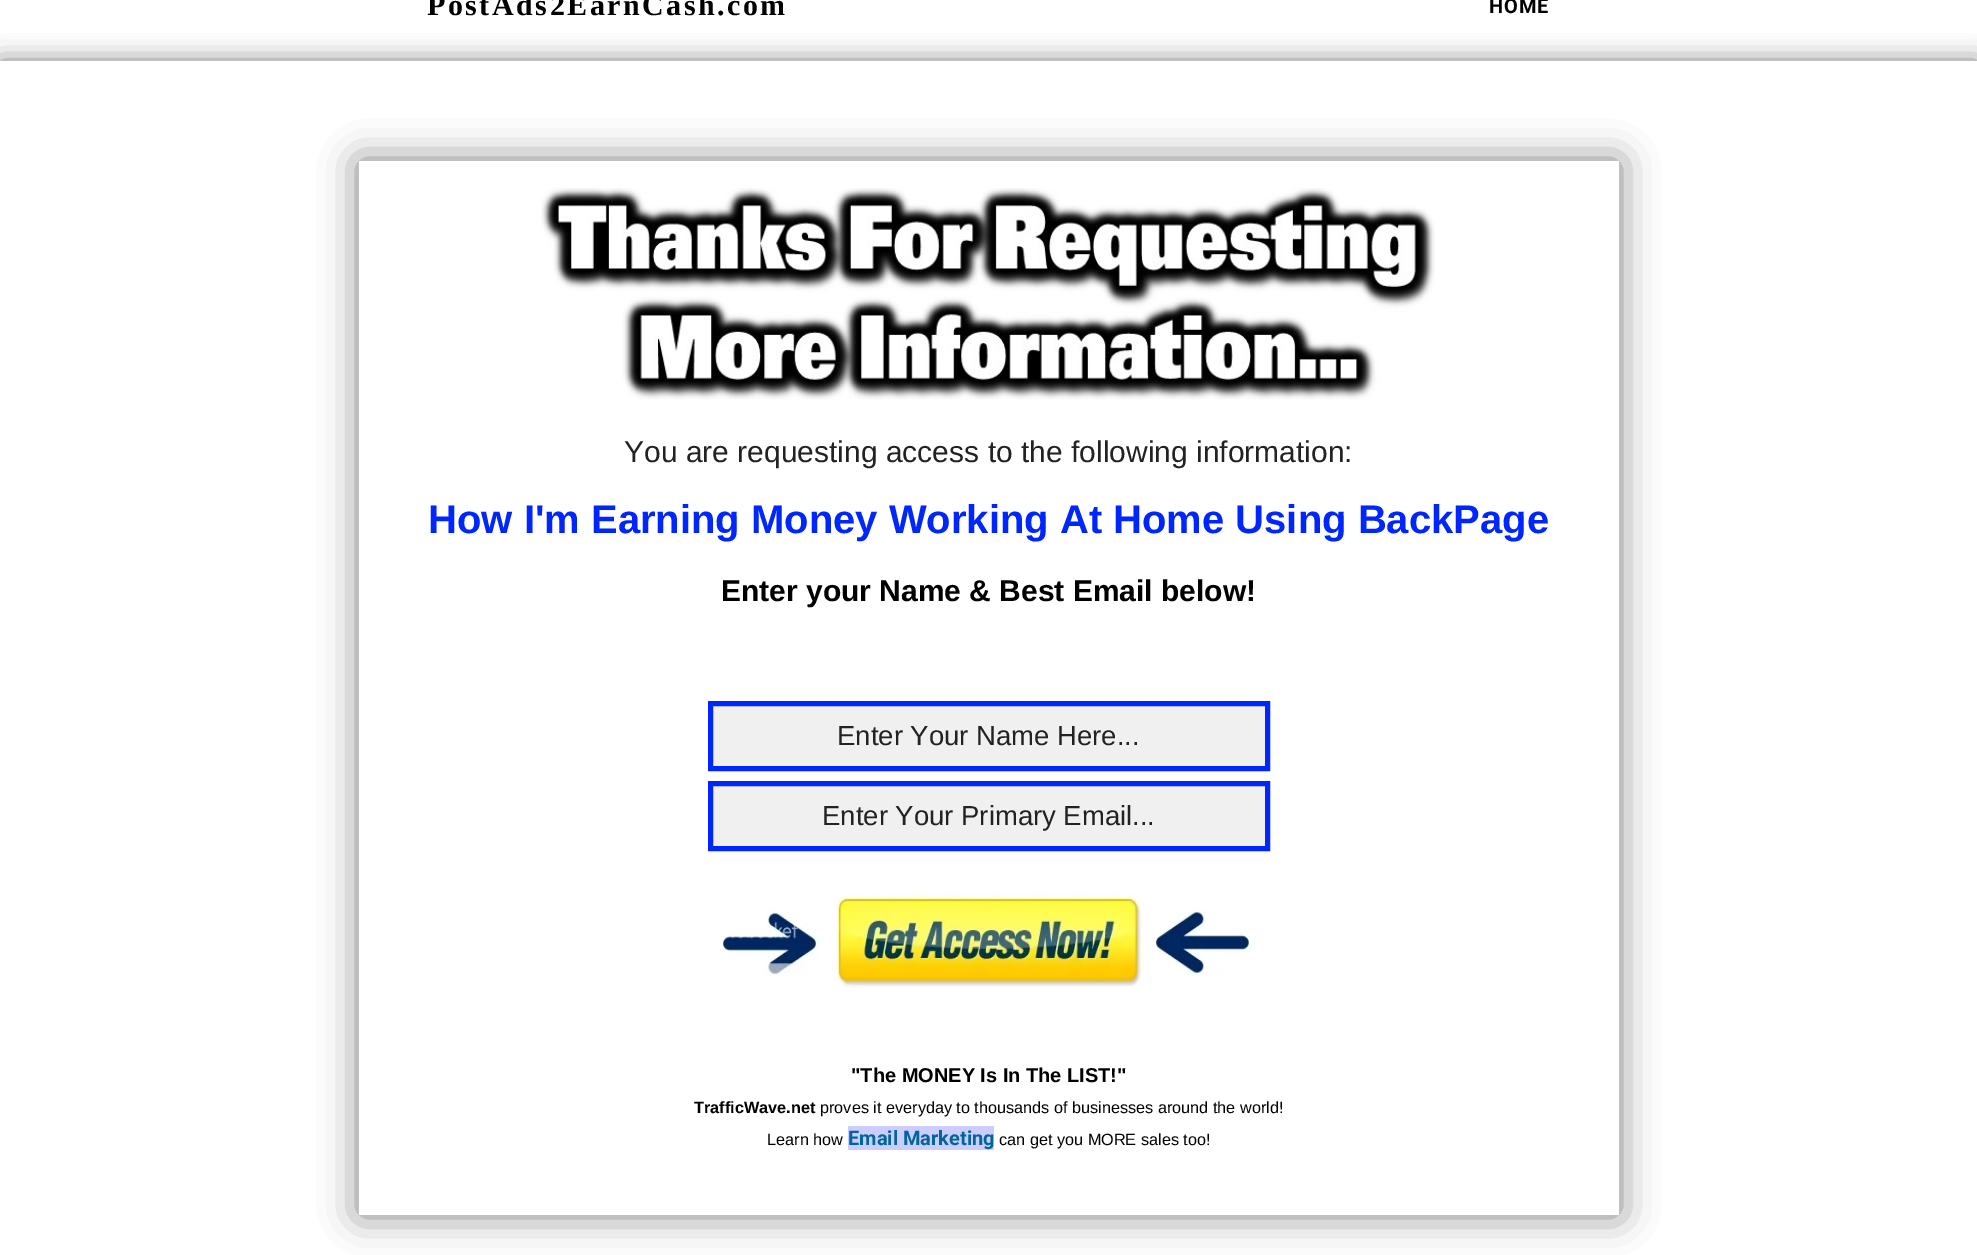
%!PS-Adobe-3.0
%%BoundingBox: 0 0 1977 1255
%%LanguageLevel: 3
%%Pages: 1
%%EndComments
%%BeginProlog
/setink { 3 { 255 div 3 1 roll } repeat setrgbcolor } def
/usefont { [ exch dup neg 0 0 3 -1 roll 0 0 ] selectfont } def
/drawtext { setink usefont moveto show } def
/fillbox { setink rectfill } def
/setalpha { dup .setfillconstantalpha .setstrokeconstantalpha } def
/rrect { 5 dict begin { /r /h /w /y /x } { exch def } forall
  x r add y moveto x w add y 2 copy h add r arct x w add y h add x 1 index r arct
  x y h add x y r arct x y 2 copy exch w add exch r arct closepath end } def
/softshadow { 12 dict begin { /a /b /q /h /w /y /x } { exch def } forall gsave /was 0 def
  9 -2 -9 { dup b mul 4 div /e exch def 1 sub .425 mul 2.718 exch exp 1 add a .99 .min exch div /now exch def
    1 1 now sub 1 was sub div sub setalpha /was now def
    w h .min e 2 mul add 0 gt { x e sub y e sub w e 2 mul add h e 2 mul add
      q e add b .6 mul add w h .min 2 div e add .min 0 .max rrect fill } if } for grestore end } def
/drawimage { 5 dict begin { /h /w /y /x /name } { exch def } forall
  gsave x y translate w h scale
  w h 8 [w 0 0 h 0 0] name (r) file false 3 colorimage grestore end } def
%%EndProlog
%%BeginSetup
<< /PageSize [1977 1255] /PageUsesTransparency true >> setpagedevice
%%EndSetup
%%Page: 1 1
0 .pushpdf14devicefilter
0 1255 translate 1 -1 scale
4 setmiterlimit
0 0 1977 1255 255 255 255 fillbox
/LiberationSerif-Bold 30 usefont
0 0 0 setink
427 15 moveto 2.5 0 (PostAds2EarnCash.com) ashow
/Roboto-Bold 20 usefont
1489 13 moveto 1 0 (HOME) ashow
0 61 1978 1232 0 12.5 0.5 softshadow
0 61 1977 1194 255 255 255 fillbox
0 0 0 setink
359 161 1260 1054 0 19 0.5 softshadow
359 161 1260 1054 255 255 255 fillbox
(assets/img1.rgb) 541 188 894 212 drawimage
(You are requesting access to the following information:) 624 462 /LiberationSans-Regular 30 34 34 34 drawtext
(How I'm Earning Money Working At Home Using BackPage) 428 533 /LiberationSans-Bold 40 0 38 255 drawtext
(Enter your Name & Best Email below!) 721 601 /LiberationSans-Bold 30 0 0 0 drawtext
240 240 240 setink
710.5 703.5 moveto 1267.5 703.5 lineto 1267.5 768.5 lineto 710.5 768.5 lineto closepath gsave fill grestore
0 38 255 setink
5 setlinewidth
stroke
(Enter Your Name Here...) 837 745 /LiberationSans-Regular 27.5 34 34 34 drawtext
240 240 240 setink
710.5 783.5 moveto 1267.5 783.5 lineto 1267.5 848.5 lineto 710.5 848.5 lineto closepath gsave fill grestore
0 38 255 setink
stroke
(Enter Your Primary Email...) 822 825 /LiberationSans-Regular 27.5 34 34 34 drawtext
(assets/img2.rgb) 721 892 530 96 drawimage
("The MONEY Is In The LIST!") 851 1082 /LiberationSans-Bold 20 0 0 0 drawtext
(TrafficWave.net) 694 1113 /LiberationSans-Bold 16.25 0 0 0 drawtext
(proves it everyday to thousands of businesses around the world!) 820 1113 /LiberationSans-Regular 16.25 0 0 0 drawtext
(Learn how) 767 1145 /LiberationSans-Regular 16.25 0 0 0 drawtext
848 1126 146 24 204 204 255 fillbox
(Email Marketing) 848 1145 /Roboto-Bold 20 0 102 153 drawtext
(can get you MORE sales too!) 999 1145 /LiberationSans-Regular 16.25 0 0 0 drawtext
.poppdf14devicefilter showpage
%%EOF
